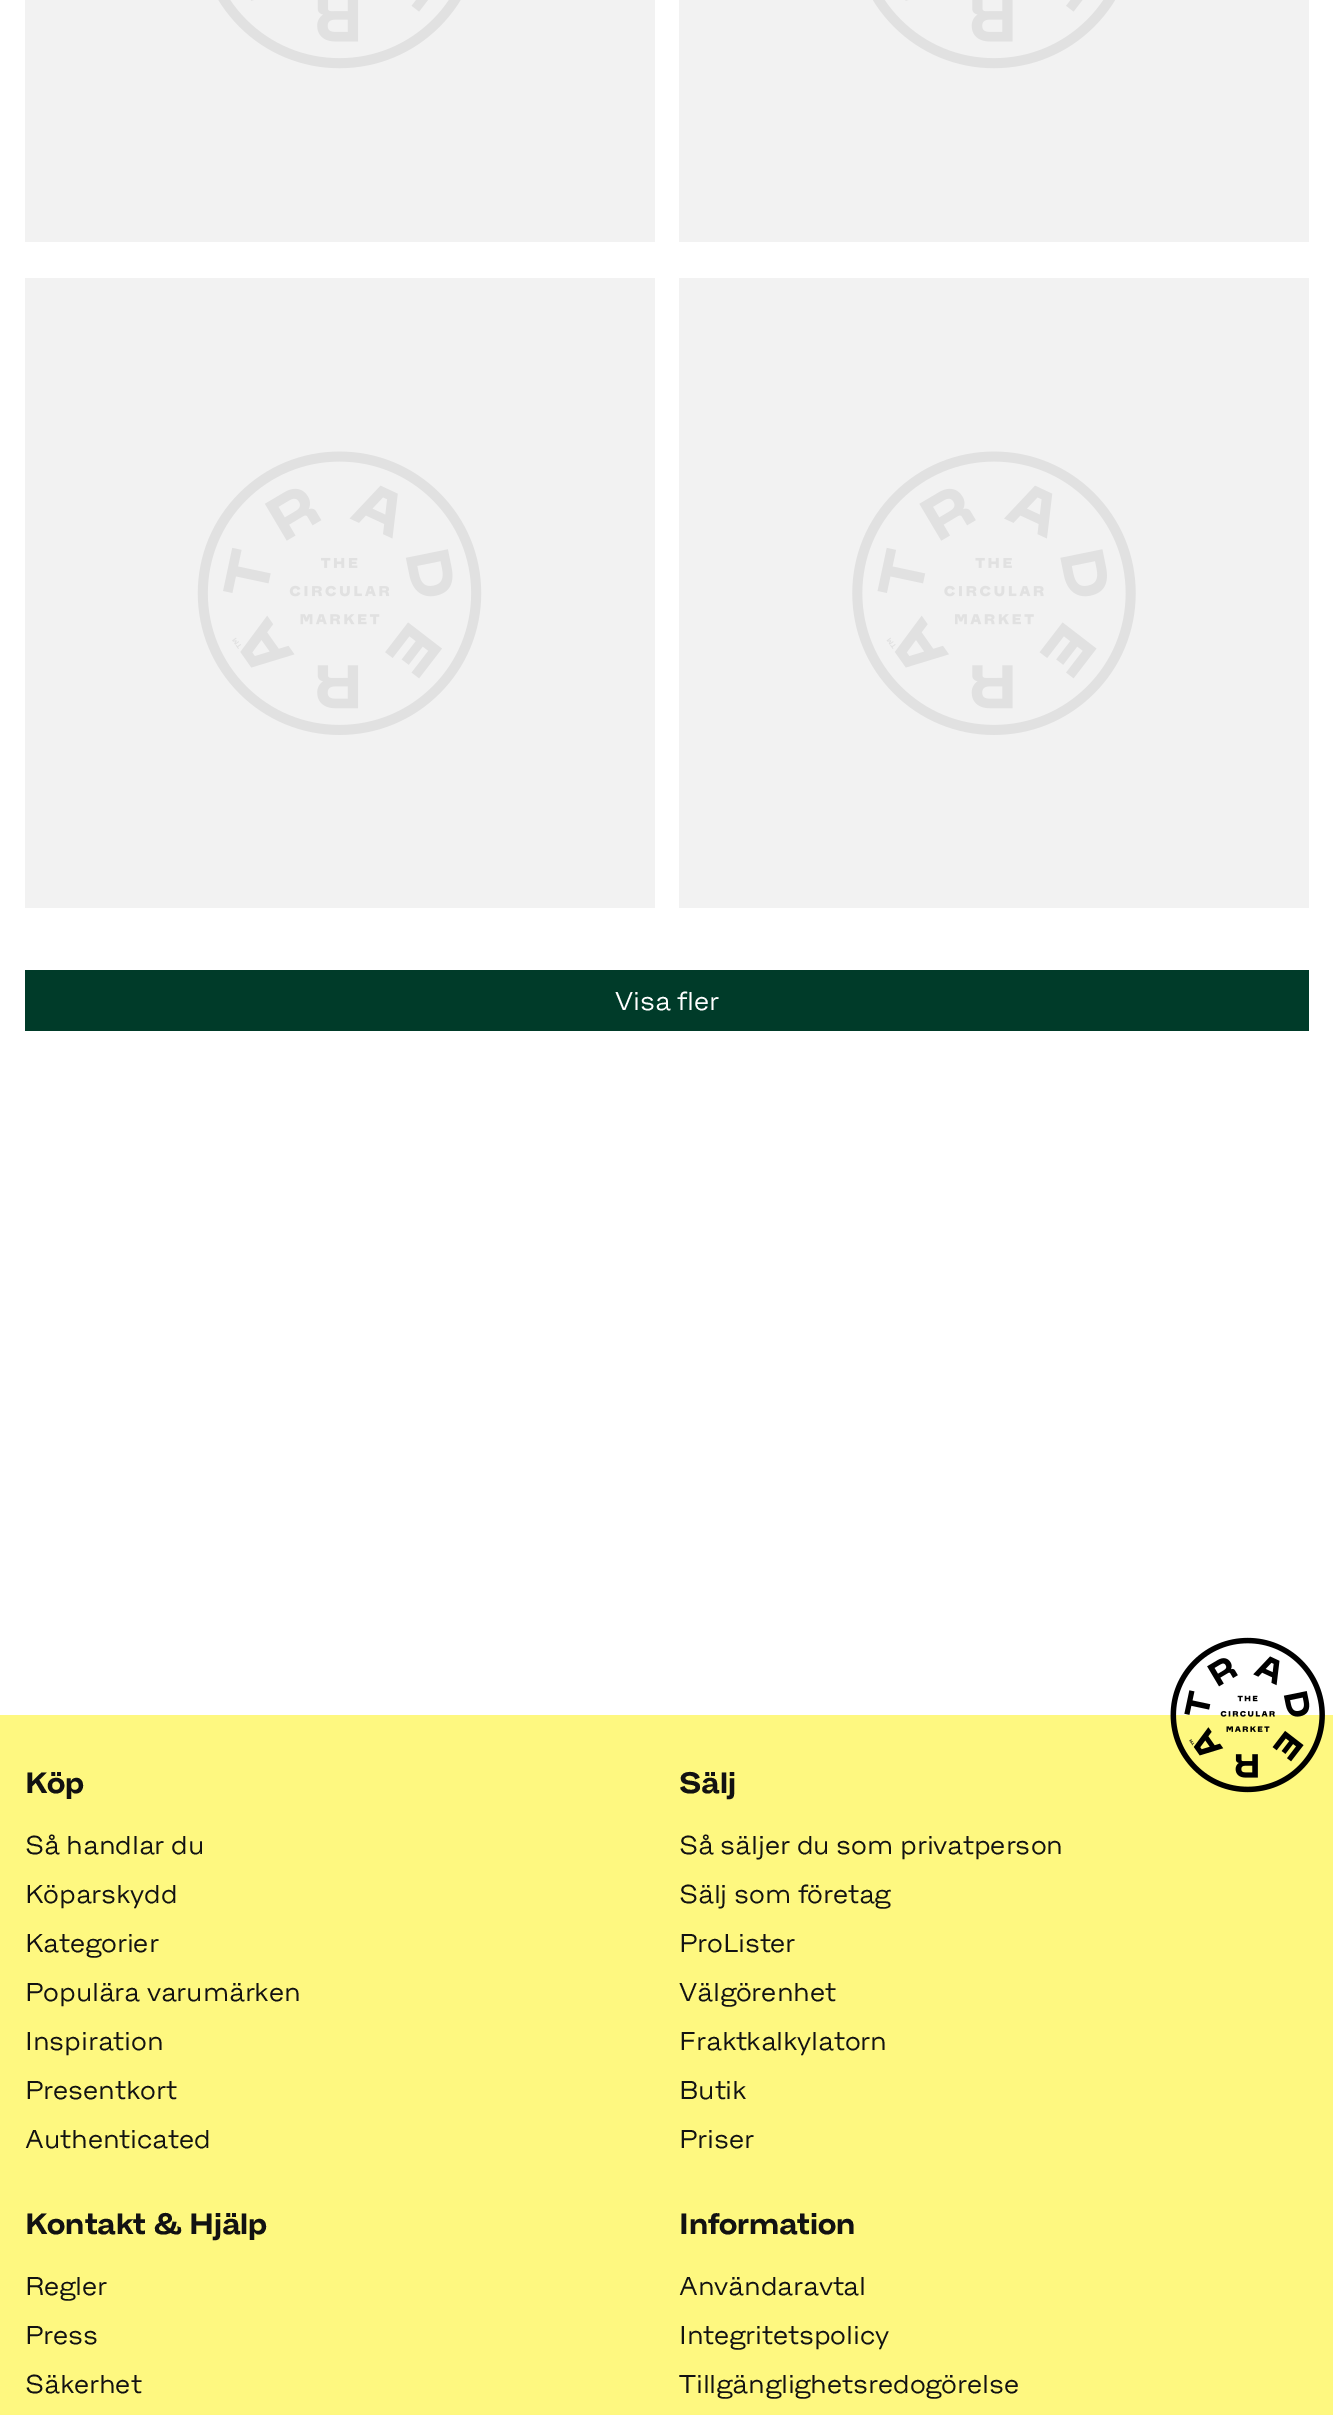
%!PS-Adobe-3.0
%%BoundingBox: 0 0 1333 2415
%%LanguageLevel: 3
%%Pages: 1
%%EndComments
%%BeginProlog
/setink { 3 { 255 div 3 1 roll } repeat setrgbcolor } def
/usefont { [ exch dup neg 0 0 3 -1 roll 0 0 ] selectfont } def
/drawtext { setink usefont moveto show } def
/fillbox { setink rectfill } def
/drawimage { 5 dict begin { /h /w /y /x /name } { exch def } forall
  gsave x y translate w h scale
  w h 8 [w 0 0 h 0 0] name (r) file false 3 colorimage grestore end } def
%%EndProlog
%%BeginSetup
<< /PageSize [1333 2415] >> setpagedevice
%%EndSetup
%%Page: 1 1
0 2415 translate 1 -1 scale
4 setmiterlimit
0 0 1333 2415 255 255 255 fillbox
25 0 630 242 242 242 242 fillbox
(assets/img1.rgb) 218 0 243 69 drawimage
679 0 630 242 242 242 242 fillbox
(assets/img2.rgb) 873 0 242 69 drawimage
25 278 630 630 242 242 242 fillbox
(assets/img3.rgb) 197 451 285 284 drawimage
679 278 630 630 242 242 242 fillbox
(assets/img4.rgb) 852 451 284 284 drawimage
25 970 1284 61 0 59 41 fillbox
(Visa fler) 615 1010 /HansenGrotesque-Regular 24.5 255 255 255 drawtext
0 1715 1333 700 254 248 128 fillbox
(assets/img5.rgb) 1170 1637 155 156 drawimage
(Köp) 25 1793 /HansenGrotesque-Bold 28 18 18 18 drawtext
(Så handlar du) 25 1854 /HansenGrotesque-Regular 24.5 18 18 18 drawtext
(Köparskydd) 25 1903 /HansenGrotesque-Regular 24.5 18 18 18 drawtext
(Kategorier) 25 1952 /HansenGrotesque-Regular 24.5 18 18 18 drawtext
(Populära varumärken) 25 2001 /HansenGrotesque-Regular 24.5 18 18 18 drawtext
(Inspiration) 25 2050 /HansenGrotesque-Regular 24.5 18 18 18 drawtext
(Presentkort) 25 2099 /HansenGrotesque-Regular 24.5 18 18 18 drawtext
(Authenticated) 25 2148 /HansenGrotesque-Regular 24.5 18 18 18 drawtext
(Sälj) 679 1793 /HansenGrotesque-Bold 28 18 18 18 drawtext
(Så säljer du som privatperson) 679 1854 /HansenGrotesque-Regular 24.5 18 18 18 drawtext
(Sälj som företag) 679 1903 /HansenGrotesque-Regular 24.5 18 18 18 drawtext
(ProLister) 679 1952 /HansenGrotesque-Regular 24.5 18 18 18 drawtext
(Välgörenhet) 679 2001 /HansenGrotesque-Regular 24.5 18 18 18 drawtext
(Fraktkalkylatorn) 679 2050 /HansenGrotesque-Regular 24.5 18 18 18 drawtext
(Butik) 679 2099 /HansenGrotesque-Regular 24.5 18 18 18 drawtext
(Priser) 679 2148 /HansenGrotesque-Regular 24.5 18 18 18 drawtext
(Kontakt & Hjälp) 25 2234 /HansenGrotesque-Bold 28 18 18 18 drawtext
(Regler) 25 2295 /HansenGrotesque-Regular 24.5 18 18 18 drawtext
(Press) 25 2344 /HansenGrotesque-Regular 24.5 18 18 18 drawtext
(Säkerhet) 25 2393 /HansenGrotesque-Regular 24.5 18 18 18 drawtext
(Information) 679 2234 /HansenGrotesque-Bold 28 18 18 18 drawtext
(Användaravtal) 679 2295 /HansenGrotesque-Regular 24.5 18 18 18 drawtext
(Integritetspolicy) 679 2344 /HansenGrotesque-Regular 24.5 18 18 18 drawtext
(Tillgänglighetsredogörelse) 679 2393 /HansenGrotesque-Regular 24.5 18 18 18 drawtext
showpage
%%EOF
